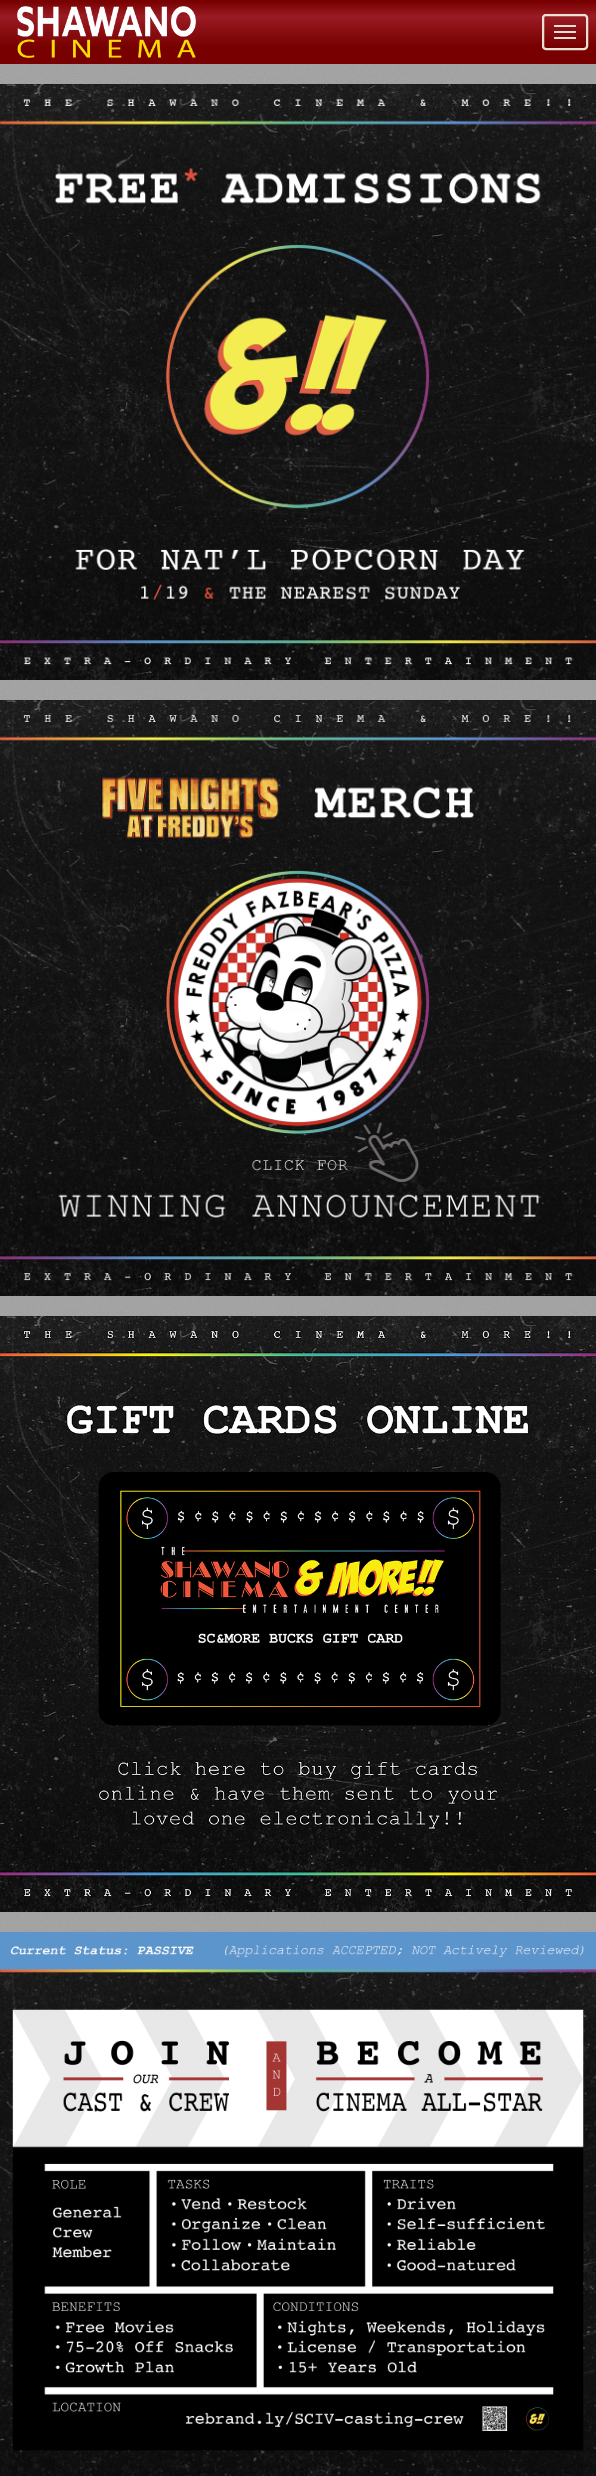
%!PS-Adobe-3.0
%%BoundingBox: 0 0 596 2476
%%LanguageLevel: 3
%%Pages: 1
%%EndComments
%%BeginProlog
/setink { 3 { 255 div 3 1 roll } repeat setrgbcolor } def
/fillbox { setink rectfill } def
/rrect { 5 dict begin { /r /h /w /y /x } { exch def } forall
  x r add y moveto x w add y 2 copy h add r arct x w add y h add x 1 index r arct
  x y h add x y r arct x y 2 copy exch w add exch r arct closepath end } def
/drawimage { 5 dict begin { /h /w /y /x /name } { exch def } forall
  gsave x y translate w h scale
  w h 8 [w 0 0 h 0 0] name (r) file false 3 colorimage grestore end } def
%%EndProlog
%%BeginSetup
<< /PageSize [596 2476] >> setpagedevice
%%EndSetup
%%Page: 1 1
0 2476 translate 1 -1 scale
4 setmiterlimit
0 0 596 2476 255 255 255 fillbox
(assets/img1.rgb) 0 64 596 1868 drawimage
gsave 0 0 moveto 596 0 lineto 596 1 lineto 0 1 lineto closepath clip newpath
<< /ShadingType 2 /ColorSpace /DeviceRGB /Coords [298 -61 298 1] /Extend [true true] /Function << /FunctionType 3 /Domain [0 1] /Functions [<< /FunctionType 2 /Domain [0 1] /C0 [0.471 0 0] /C1 [0.604 0.106 0.141] /N 1 >> << /FunctionType 2 /Domain [0 1] /C0 [0.604 0.106 0.141] /C1 [0.471 0 0] /N 1 >> << /FunctionType 2 /Domain [0 1] /C0 [0.471 0 0] /C1 [0.471 0 0] /N 1 >>] /Bounds [0.25 0.75] /Encode [0 1 0 1 0 1] >> >> shfill grestore
gsave 0 1 moveto 596 1 lineto 596 63 lineto 0 63 lineto closepath clip newpath
<< /ShadingType 2 /ColorSpace /DeviceRGB /Coords [298 1 298 63] /Extend [true true] /Function << /FunctionType 3 /Domain [0 1] /Functions [<< /FunctionType 2 /Domain [0 1] /C0 [0.471 0 0] /C1 [0.604 0.106 0.141] /N 1 >> << /FunctionType 2 /Domain [0 1] /C0 [0.604 0.106 0.141] /C1 [0.471 0 0] /N 1 >> << /FunctionType 2 /Domain [0 1] /C0 [0.471 0 0] /C1 [0.471 0 0] /N 1 >>] /Bounds [0.25 0.75] /Encode [0 1 0 1 0 1] >> >> shfill grestore
gsave 0 63 moveto 596 63 lineto 596 64 lineto 0 64 lineto closepath clip newpath
<< /ShadingType 2 /ColorSpace /DeviceRGB /Coords [298 63 298 125] /Extend [true true] /Function << /FunctionType 3 /Domain [0 1] /Functions [<< /FunctionType 2 /Domain [0 1] /C0 [0.471 0 0] /C1 [0.604 0.106 0.141] /N 1 >> << /FunctionType 2 /Domain [0 1] /C0 [0.604 0.106 0.141] /C1 [0.471 0 0] /N 1 >> << /FunctionType 2 /Domain [0 1] /C0 [0.471 0 0] /C1 [0.471 0 0] /N 1 >>] /Bounds [0.25 0.75] /Encode [0 1 0 1 0 1] >> >> shfill grestore
(assets/img2.rgb) 17 6 179 52 drawimage
231 226 214 setink
2 setlinewidth
543 15 44 34 3 rrect stroke
554 25 22 2 1 rrect fill
554 31 22 2 1 rrect fill
554 37 22 2 1 rrect fill
(assets/img3.rgb) 0 84 596 596 drawimage
(assets/img4.rgb) 0 700 596 596 drawimage
(assets/img5.rgb) 0 1316 596 596 drawimage
(assets/img6.rgb) 0 1932 596 544 drawimage
showpage
%%EOF
